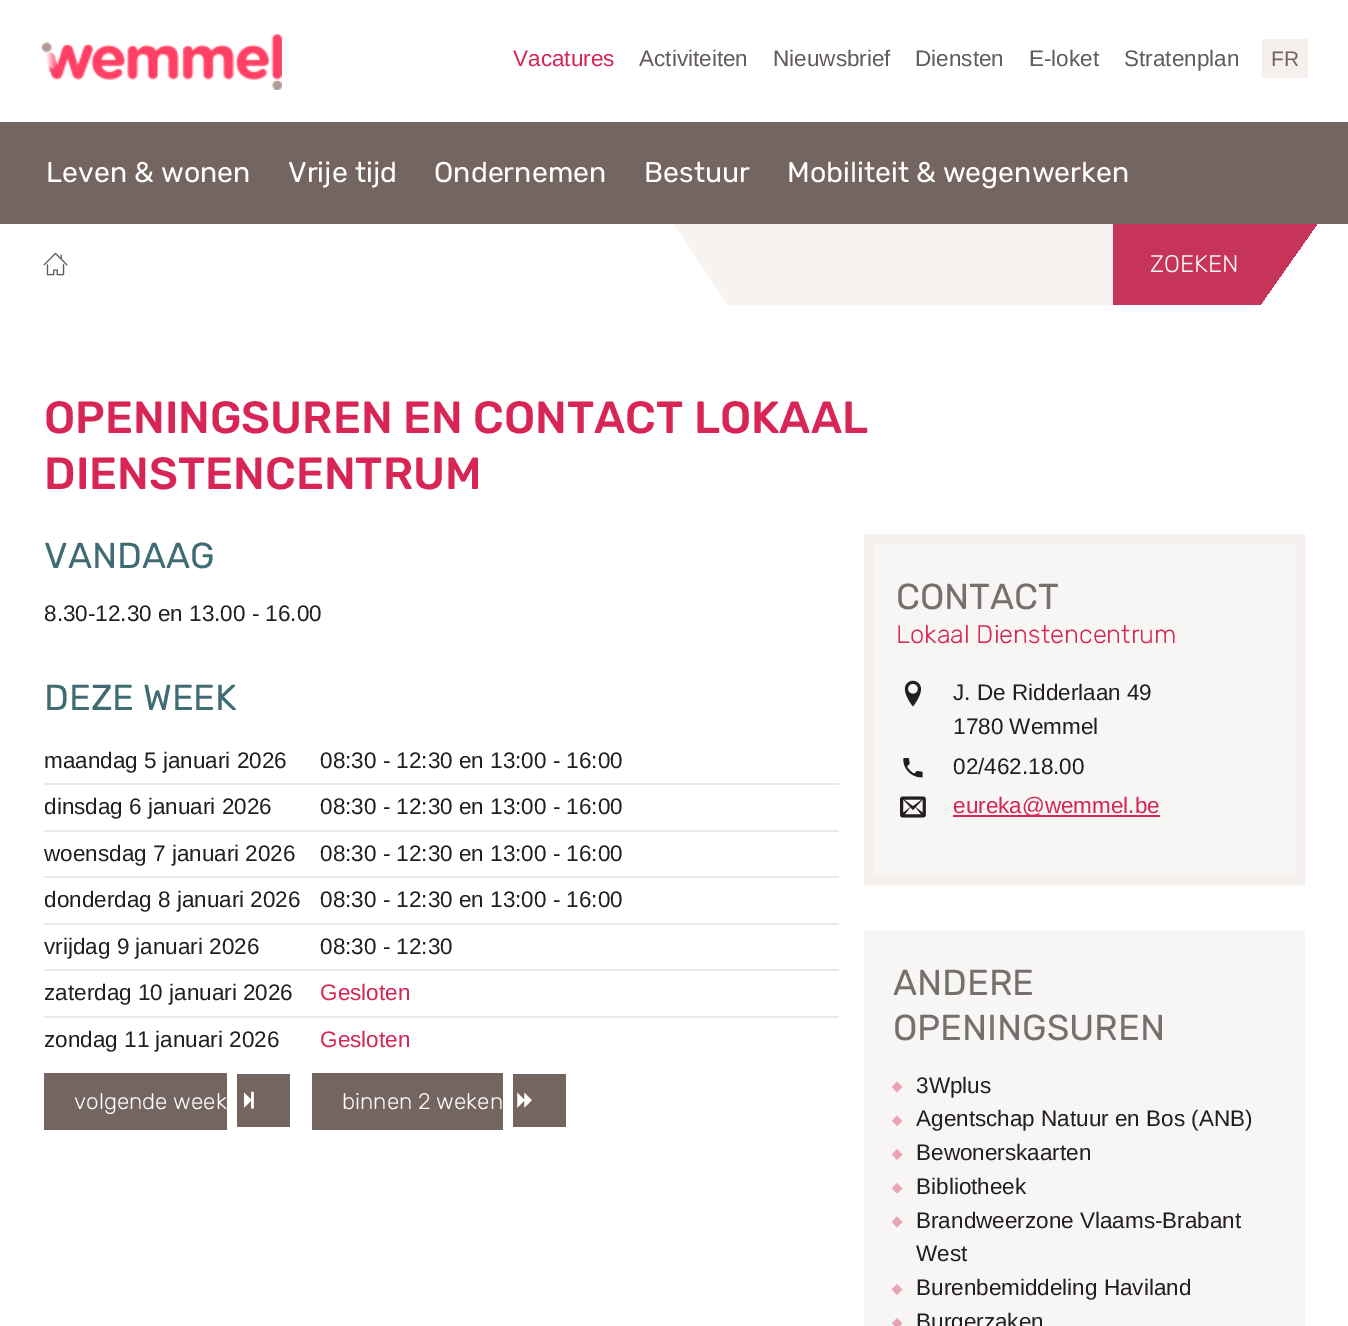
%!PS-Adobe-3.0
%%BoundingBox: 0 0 1348 1326
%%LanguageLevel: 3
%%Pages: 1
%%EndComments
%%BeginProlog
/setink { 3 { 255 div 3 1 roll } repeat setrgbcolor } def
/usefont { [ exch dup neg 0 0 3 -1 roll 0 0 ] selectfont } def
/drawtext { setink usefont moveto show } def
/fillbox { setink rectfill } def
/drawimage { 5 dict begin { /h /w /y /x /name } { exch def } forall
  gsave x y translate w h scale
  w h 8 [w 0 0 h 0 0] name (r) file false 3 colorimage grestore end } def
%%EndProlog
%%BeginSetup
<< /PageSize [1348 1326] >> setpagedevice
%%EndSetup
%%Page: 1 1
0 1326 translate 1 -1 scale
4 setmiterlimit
0 0 1348 1326 255 255 255 fillbox
(assets/img1.rgb) 42 34 240 56 drawimage
(Vacatures) 513 66 /LiberationSans-Regular 22.5 215 38 86 drawtext
(Activiteiten) 639 66 /LiberationSans-Regular 22.5 98 92 90 drawtext
(Nieuwsbrief) 773 66 /LiberationSans-Regular 22.5 98 92 90 drawtext
(Diensten) 915 66 /LiberationSans-Regular 22.5 98 92 90 drawtext
(E-loket) 1029 66 /LiberationSans-Regular 22.5 98 92 90 drawtext
(Stratenplan) 1124 66 /LiberationSans-Regular 22.5 98 92 90 drawtext
1262 39 46 39 245 240 237 fillbox
(FR) 1271 66 /LiberationSans-Regular 21 116 101 97 drawtext
674 224 439 81 247 243 241 fillbox
255 255 255 setink
664 209 moveto 727 305 lineto 659 349 lineto 596 253 lineto closepath fill
gsave 1113 224 moveto 1317 224 lineto 1317 305 lineto 1113 305 lineto closepath clip newpath
<< /ShadingType 2 /ColorSpace /DeviceRGB /Coords [1133 195 1329 333] /Extend [true true] /Function << /FunctionType 3 /Domain [0 1] /Functions [<< /FunctionType 2 /Domain [0 1] /C0 [0.78 0.204 0.353] /C1 [0.78 0.204 0.353] /N 1 >> << /FunctionType 2 /Domain [0 1] /C0 [1 1 1] /C1 [1 1 1] /N 1 >>] /Bounds [0.7] /Encode [0 1 0 1] >> >> shfill grestore
(ZOEKEN) 1150 272 /Rubik-Light 24 255 255 255 drawtext
0 122 1348 102 116 101 97 fillbox
(Leven & wonen) 46 182 /Rubik-Regular 28.5 255 255 255 drawtext
(Vrije tijd) 288 182 /Rubik-Regular 28.5 255 255 255 drawtext
(Ondernemen) 434 182 /Rubik-Regular 28.5 255 255 255 drawtext
(Bestuur) 644 182 /Rubik-Regular 28.5 255 255 255 drawtext
(Mobiliteit & wegenwerken) 787 182 /Rubik-Regular 28.5 255 255 255 drawtext
(assets/img2.rgb) 43 252 25 24 drawimage
(OPENINGSUREN EN CONTACT LOKAAL) 44 433 /Rubik-Medium 45 215 38 86 drawtext
(DIENSTENCENTRUM) 44 489 /Rubik-Medium 45 215 38 86 drawtext
(VANDAAG) 44 568 /Rubik-Regular 36 63 108 114 drawtext
(8.30-12.30 en 13.00 - 16.00) 44 621 /LiberationSans-Regular 22.5 35 31 32 drawtext
(DEZE WEEK) 44 710 /Rubik-Regular 36 63 108 114 drawtext
44 783 795 2 233 233 233 fillbox
(maandag 5 januari 2026) 44 768 /LiberationSans-Regular 22.5 35 31 32 drawtext
(08:30 - 12:30 en 13:00 - 16:00) 320 768 /LiberationSans-Regular 22.5 35 31 32 drawtext
44 830 795 2 233 233 233 fillbox
(dinsdag 6 januari 2026) 44 814 /LiberationSans-Regular 22.5 35 31 32 drawtext
(08:30 - 12:30 en 13:00 - 16:00) 320 814 /LiberationSans-Regular 22.5 35 31 32 drawtext
44 876 795 2 233 233 233 fillbox
(woensdag 7 januari 2026) 44 861 /LiberationSans-Regular 22.5 35 31 32 drawtext
(08:30 - 12:30 en 13:00 - 16:00) 320 861 /LiberationSans-Regular 22.5 35 31 32 drawtext
44 923 795 2 233 233 233 fillbox
(donderdag 8 januari 2026) 44 907 /LiberationSans-Regular 22.5 35 31 32 drawtext
(08:30 - 12:30 en 13:00 - 16:00) 320 907 /LiberationSans-Regular 22.5 35 31 32 drawtext
44 969 795 2 233 233 233 fillbox
(vrijdag 9 januari 2026) 44 954 /LiberationSans-Regular 22.5 35 31 32 drawtext
(08:30 - 12:30) 320 954 /LiberationSans-Regular 22.5 35 31 32 drawtext
44 1016 795 2 233 233 233 fillbox
(zaterdag 10 januari 2026) 44 1000 /LiberationSans-Regular 22.5 35 31 32 drawtext
(Gesloten) 320 1000 /LiberationSans-Regular 22.5 215 38 86 drawtext
(zondag 11 januari 2026) 44 1047 /LiberationSans-Regular 22.5 35 31 32 drawtext
(Gesloten) 320 1047 /LiberationSans-Regular 22.5 215 38 86 drawtext
44 1073 183 57 116 101 97 fillbox
(volgende week) 74 1109 /Rubik-Light 22.5 255 255 255 drawtext
237 1074 53 53 116 101 97 fillbox
(assets/img3.rgb) 244 1091 10 18 drawimage
312 1073 191 57 116 101 97 fillbox
(binnen 2 weken) 342 1109 /Rubik-Light 22.5 255 255 255 drawtext
513 1074 53 53 116 101 97 fillbox
(assets/img4.rgb) 517 1092 15 16 drawimage
247 246 245 setink
868.5 538.5 moveto 1300.5 538.5 lineto 1300.5 880.5 lineto 868.5 880.5 lineto closepath gsave fill grestore
245 240 237 setink
9 setlinewidth
stroke
(CONTACT) 896 609 /Rubik-Regular 36 117 112 110 drawtext
(Lokaal Dienstencentrum) 896 643 /Rubik-Light 25.5 215 38 86 drawtext
(assets/img5.rgb) 904 680 17 27 drawimage
(J. De Ridderlaan 49) 953 700 /LiberationSans-Regular 22.5 35 31 32 drawtext
(1780 Wemmel) 953 734 /LiberationSans-Regular 22.5 35 31 32 drawtext
(assets/img6.rgb) 903 758 20 20 drawimage
(02/462.18.00) 953 774 /LiberationSans-Regular 22.5 35 31 32 drawtext
(assets/img7.rgb) 900 796 26 22 drawimage
953 815 207 2 215 38 86 fillbox
(eureka@wemmel.be) 953 813 /LiberationSans-Regular 22.5 215 38 86 drawtext
864 930 441 396 247 246 245 fillbox
(ANDERE) 893 995 /Rubik-Regular 36 117 112 110 drawtext
(OPENINGSUREN) 893 1040 /Rubik-Regular 36 117 112 110 drawtext
234 163 181 setink
897 1081.5 moveto 902.5 1087 lineto 897 1092.5 lineto 892 1087 lineto closepath fill
(3Wplus) 916 1093 /LiberationSans-Regular 22.5 35 31 32 drawtext
234 163 181 setink
897 1115.5 moveto 902.5 1121 lineto 897 1126 lineto 892 1121 lineto closepath fill
(Agentschap Natuur en Bos \(ANB\)) 916 1126 /LiberationSans-Regular 22.5 35 31 32 drawtext
234 163 181 setink
897 1149 moveto 902.5 1154.5 lineto 897 1160 lineto 892 1154.5 lineto closepath fill
(Bewonerskaarten) 916 1160 /LiberationSans-Regular 22.5 35 31 32 drawtext
234 163 181 setink
897 1183 moveto 902.5 1188.5 lineto 897 1193.5 lineto 892 1188.5 lineto closepath fill
(Bibliotheek) 916 1194 /LiberationSans-Regular 22.5 35 31 32 drawtext
234 163 181 setink
897 1216.5 moveto 902.5 1222 lineto 897 1227.5 lineto 892 1222 lineto closepath fill
(Brandweerzone Vlaams-Brabant) 916 1228 /LiberationSans-Regular 22.5 35 31 32 drawtext
(West) 916 1261 /LiberationSans-Regular 22.5 35 31 32 drawtext
234 163 181 setink
897 1284 moveto 902.5 1289.5 lineto 897 1295 lineto 892 1289.5 lineto closepath fill
(Burenbemiddeling Haviland) 916 1295 /LiberationSans-Regular 22.5 35 31 32 drawtext
234 163 181 setink
897 1318 moveto 902.5 1323.5 lineto 897 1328.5 lineto 892 1323.5 lineto closepath fill
(Burgerzaken) 916 1329 /LiberationSans-Regular 22.5 35 31 32 drawtext
showpage
%%EOF
